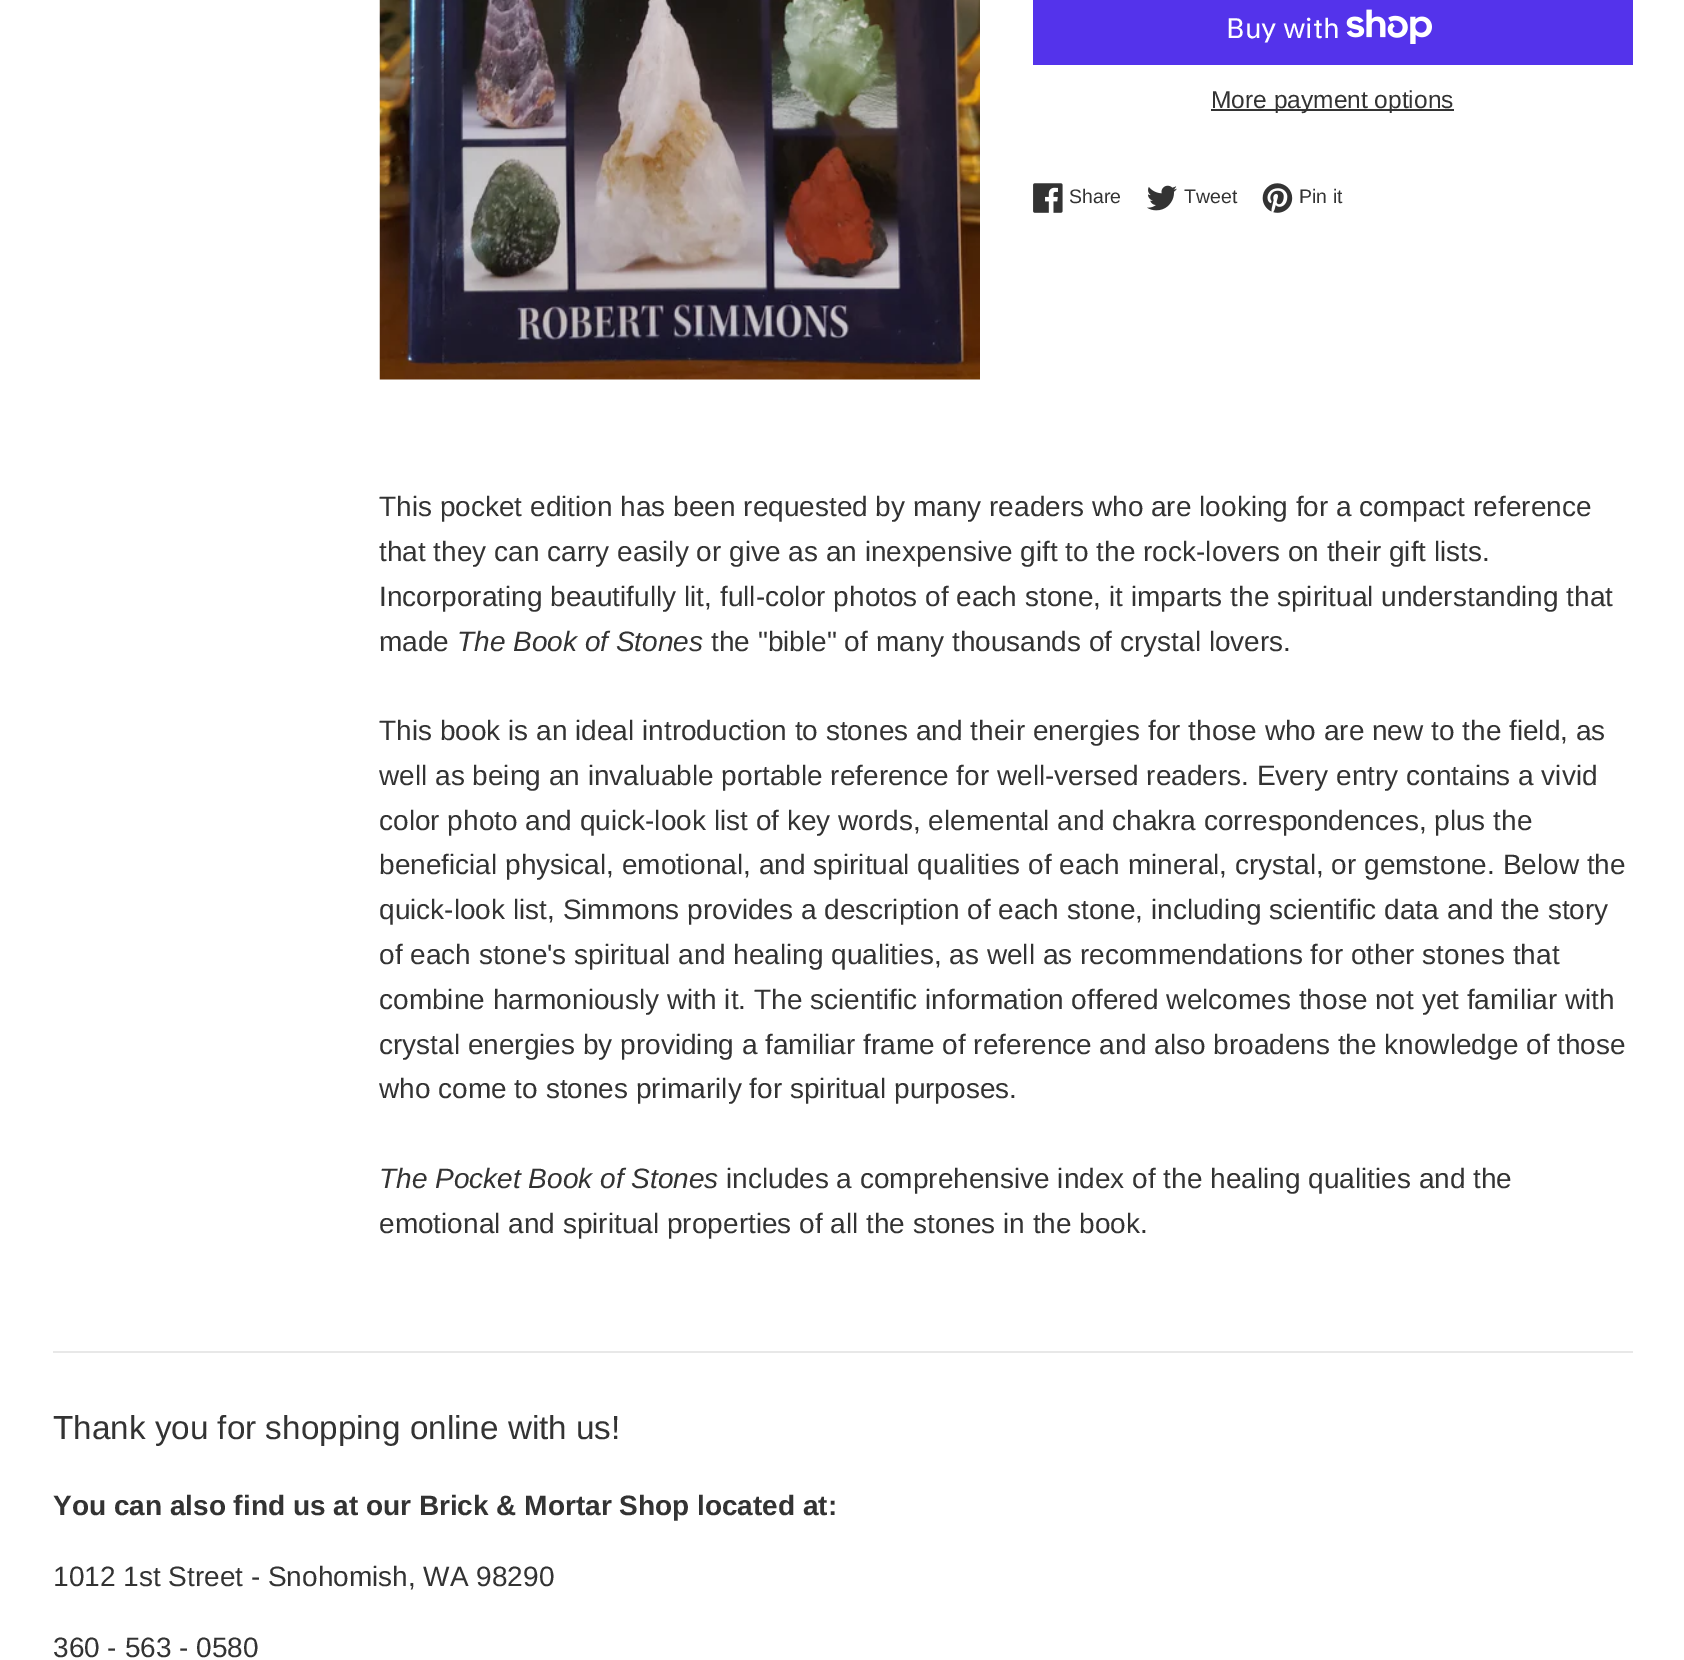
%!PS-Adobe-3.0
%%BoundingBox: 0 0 1684 1660
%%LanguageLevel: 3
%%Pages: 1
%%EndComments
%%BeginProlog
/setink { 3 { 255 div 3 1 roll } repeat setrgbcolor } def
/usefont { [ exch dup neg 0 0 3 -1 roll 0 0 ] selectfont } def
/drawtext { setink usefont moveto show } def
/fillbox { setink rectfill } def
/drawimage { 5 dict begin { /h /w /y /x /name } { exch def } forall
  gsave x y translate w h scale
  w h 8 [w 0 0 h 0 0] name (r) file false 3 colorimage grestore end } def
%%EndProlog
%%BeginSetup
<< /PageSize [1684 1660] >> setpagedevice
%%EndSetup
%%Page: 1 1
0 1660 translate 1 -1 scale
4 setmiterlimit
0 0 1684 1660 255 255 255 fillbox
(assets/img1.rgb) 379 0 601 380 drawimage
1033 0 600 65 84 51 235 fillbox
(Buy with) 1226 38 /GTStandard-Regular 28 255 255 255 drawtext
(assets/img2.rgb) 1346 9 86 35 drawimage
1211 109 243 2 51 51 51 fillbox
(More payment options) 1211 108 /LiberationSans-Regular 24.5 51 51 51 drawtext
(assets/img3.rgb) 1033 183 30 30 drawimage
(Share) 1069 203 /LiberationSans-Regular 19.5 51 51 51 drawtext
(assets/img4.rgb) 1147 185 30 26 drawimage
(Tweet) 1184 203 /LiberationSans-Regular 19.5 51 51 51 drawtext
(assets/img5.rgb) 1262 183 31 30 drawimage
(Pin it) 1299 203 /LiberationSans-Regular 19.5 51 51 51 drawtext
(This pocket edition has been requested by many readers who are looking for a compact reference) 379 516 /LiberationSans-Regular 28 51 51 51 drawtext
(that they can carry easily or give as an inexpensive gift to the rock-lovers on their gift lists.) 379 561 /LiberationSans-Regular 28 51 51 51 drawtext
(Incorporating beautifully lit, full-color photos of each stone, it imparts the spiritual understanding that) 379 606 /LiberationSans-Regular 28 51 51 51 drawtext
(made) 379 651 /LiberationSans-Regular 28 51 51 51 drawtext
(The Book of Stones) 457 651 /LiberationSans-Italic 28 51 51 51 drawtext
(the "bible" of many thousands of crystal lovers.) 711 651 /LiberationSans-Regular 28 51 51 51 drawtext
(This book is an ideal introduction to stones and their energies for those who are new to the field, as) 379 740 /LiberationSans-Regular 28 51 51 51 drawtext
(well as being an invaluable portable reference for well-versed readers. Every entry contains a vivid) 379 785 /LiberationSans-Regular 28 51 51 51 drawtext
(color photo and quick-look list of key words, elemental and chakra correspondences, plus the) 379 830 /LiberationSans-Regular 28 51 51 51 drawtext
(beneficial physical, emotional, and spiritual qualities of each mineral, crystal, or gemstone. Below the) 379 874 /LiberationSans-Regular 28 51 51 51 drawtext
(quick-look list, Simmons provides a description of each stone, including scientific data and the story) 379 919 /LiberationSans-Regular 28 51 51 51 drawtext
(of each stone's spiritual and healing qualities, as well as recommendations for other stones that) 379 964 /LiberationSans-Regular 28 51 51 51 drawtext
(combine harmoniously with it. The scientific information offered welcomes those not yet familiar with) 379 1009 /LiberationSans-Regular 28 51 51 51 drawtext
(crystal energies by providing a familiar frame of reference and also broadens the knowledge of those) 379 1054 /LiberationSans-Regular 28 51 51 51 drawtext
(who come to stones primarily for spiritual purposes.) 379 1098 /LiberationSans-Regular 28 51 51 51 drawtext
(The Pocket Book of Stones) 379 1188 /LiberationSans-Italic 28 51 51 51 drawtext
(includes a comprehensive index of the healing qualities and the) 726 1188 /LiberationSans-Regular 28 51 51 51 drawtext
(emotional and spiritual properties of all the stones in the book.) 379 1233 /LiberationSans-Regular 28 51 51 51 drawtext
53 1351 1580 2 232 232 232 fillbox
(Thank you for shopping online with us!) 53 1439 /LiberationSans-Regular 33.25 51 51 51 drawtext
(You can also find us at our Brick & Mortar Shop located at:) 53 1515 /LiberationSans-Bold 28 51 51 51 drawtext
(1012 1st Street - Snohomish, WA 98290) 53 1586 /LiberationSans-Regular 28 51 51 51 drawtext
(360 - 563 - 0580) 53 1657 /LiberationSans-Regular 28 51 51 51 drawtext
showpage
%%EOF
